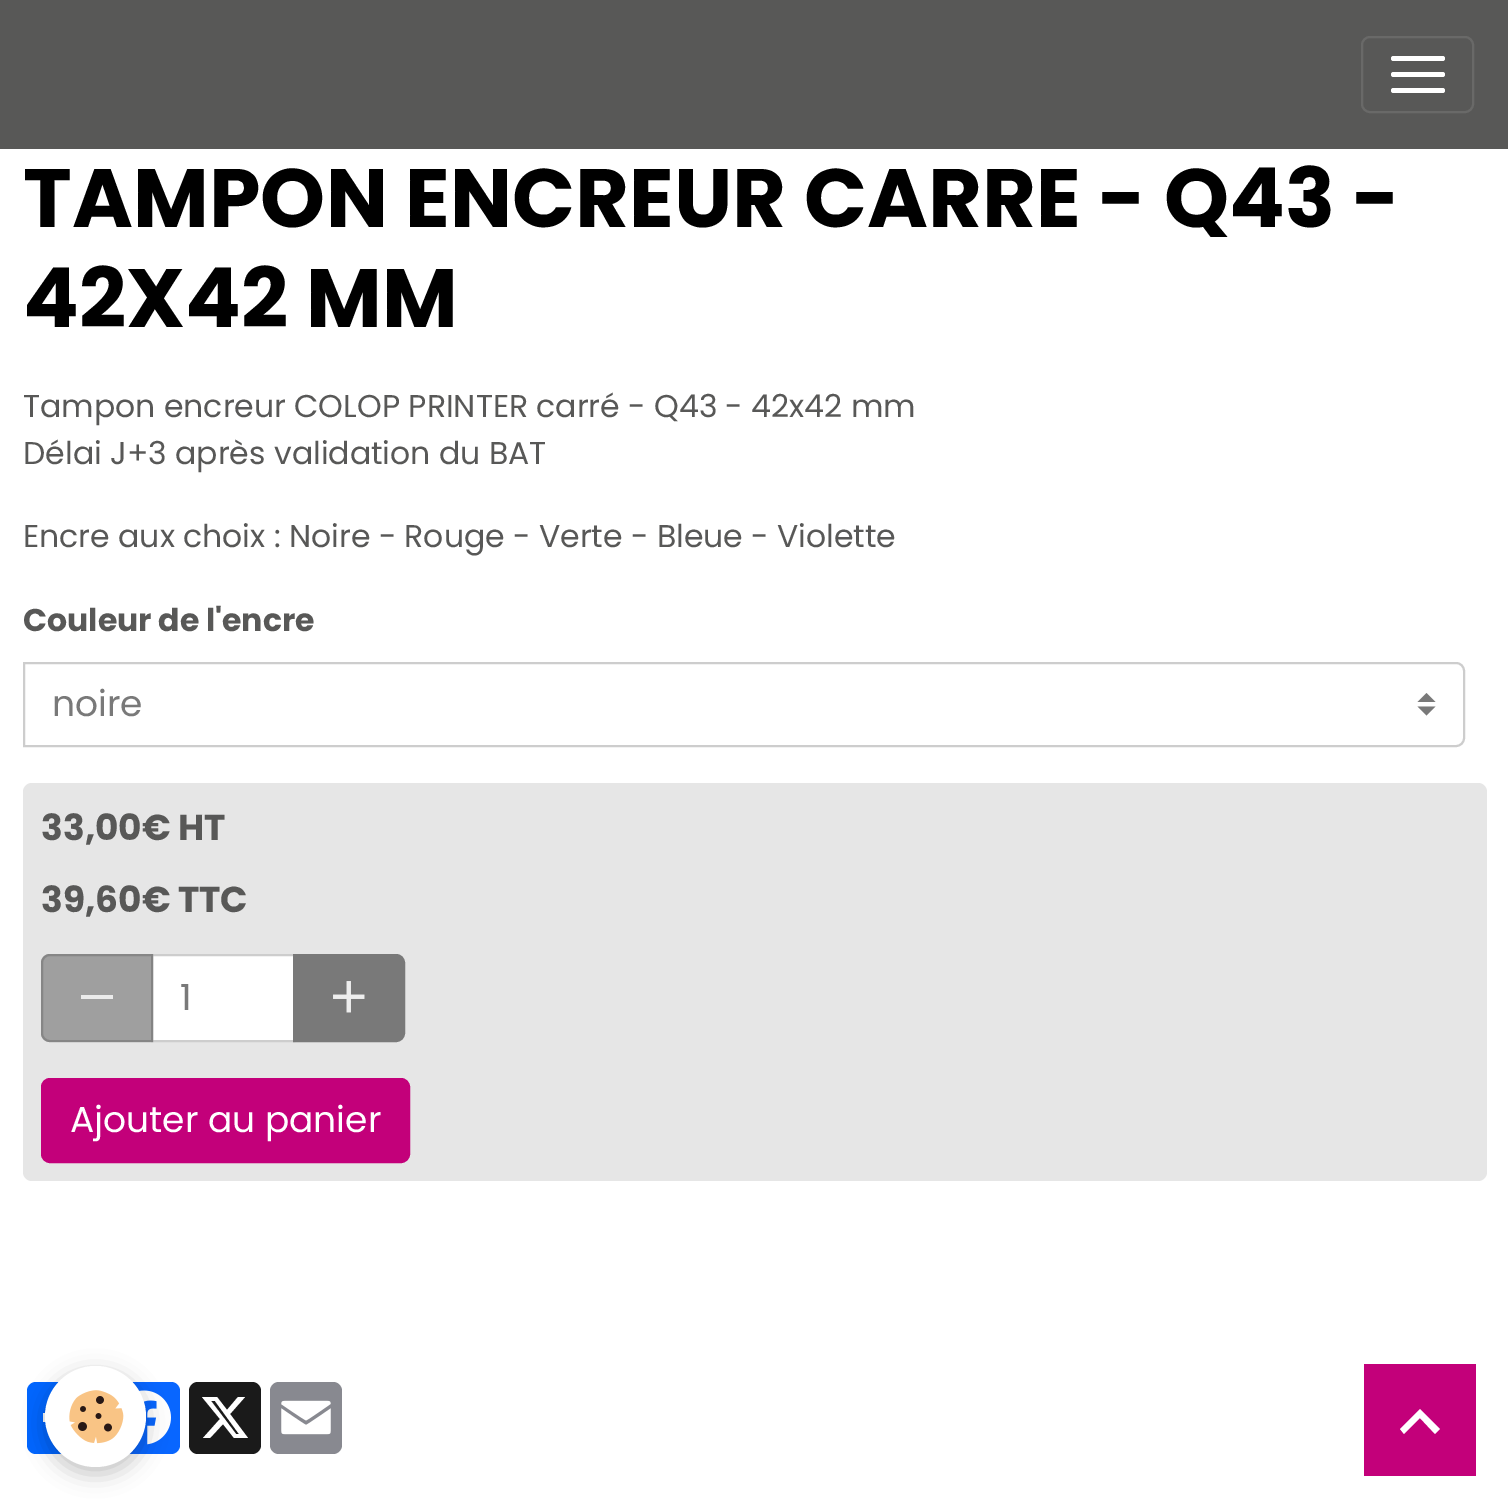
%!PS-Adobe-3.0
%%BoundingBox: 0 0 1508 1508
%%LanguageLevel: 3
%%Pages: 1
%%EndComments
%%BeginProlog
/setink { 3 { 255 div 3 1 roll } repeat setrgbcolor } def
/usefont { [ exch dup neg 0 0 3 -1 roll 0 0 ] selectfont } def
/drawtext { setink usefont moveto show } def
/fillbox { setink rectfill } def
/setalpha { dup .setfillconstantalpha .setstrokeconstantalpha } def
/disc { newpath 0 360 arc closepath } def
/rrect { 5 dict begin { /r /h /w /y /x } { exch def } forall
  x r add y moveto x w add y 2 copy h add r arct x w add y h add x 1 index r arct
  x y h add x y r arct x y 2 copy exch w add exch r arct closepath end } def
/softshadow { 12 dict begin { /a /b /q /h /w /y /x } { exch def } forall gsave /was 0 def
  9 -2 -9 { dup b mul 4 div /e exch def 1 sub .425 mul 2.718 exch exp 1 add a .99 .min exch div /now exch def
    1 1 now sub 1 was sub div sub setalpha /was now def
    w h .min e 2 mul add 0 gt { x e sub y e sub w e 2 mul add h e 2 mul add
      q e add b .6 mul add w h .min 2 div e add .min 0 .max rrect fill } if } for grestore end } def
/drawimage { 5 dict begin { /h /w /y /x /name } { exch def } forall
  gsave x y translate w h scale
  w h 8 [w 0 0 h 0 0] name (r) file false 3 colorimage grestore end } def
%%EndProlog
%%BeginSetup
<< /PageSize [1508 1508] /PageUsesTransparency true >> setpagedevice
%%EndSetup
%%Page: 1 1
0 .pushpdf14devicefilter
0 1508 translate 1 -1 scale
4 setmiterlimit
0 0 1508 1508 255 255 255 fillbox
0 0 1508 149 88 88 87 fillbox
105 105 104 setink
2 setlinewidth
1362 37 111 75 8 rrect stroke
255 255 255 setink
1391 56 54 5 2.5 rrect fill
1391 72 54 5 2.5 rrect fill
1391 88 54 5 2.5 rrect fill
(TAMPON ENCREUR CARRE - Q43 -) 23 227 /Poppins-Bold 82.75 0 0 0 drawtext
(42X42 MM) 23 327 /Poppins-Bold 82.75 0 0 0 drawtext
(Tampon encreur COLOP PRINTER carré - Q43 - 42x42 mm) 23 417 /Poppins-Regular 31.5 88 88 87 drawtext
(Délai J+3 après validation du BAT) 23 464 /Poppins-Regular 31.5 88 88 87 drawtext
(Encre aux choix : Noire - Rouge - Verte - Bleue - Violette) 23 547 /Poppins-Regular 31.5 88 88 87 drawtext
(Couleur de l'encre) 23 631 /Poppins-Bold 31.5 88 88 87 drawtext
121 121 121 setink
1426.5 693 moveto 1417.5 702 lineto 1435.5 702 lineto closepath 1426.5 715.5 moveto 1417.5 706.5 lineto 1435.5 706.5 lineto closepath fill
205 205 205 setink
24 663 moveto 1456 663 lineto 1460.5 663 1464 666.5 1464 671 curveto 1464 738 lineto 1464 742.5 1460.5 746 1456 746 curveto 24 746 lineto closepath stroke
(noire) 52 716 /Poppins-Regular 36 121 121 121 drawtext
230 230 230 setink
23 783 1464 398 9 rrect fill
(33,00€ HT) 41 840 /Poppins-Bold 36 88 88 87 drawtext
(39,60€ TTC) 41 912 /Poppins-Bold 36 88 88 87 drawtext
255 255 255 setink
152 955 moveto 294 955 lineto 294 1041 lineto 152 1041 lineto closepath gsave fill grestore
205 205 205 setink
stroke
0.65 setalpha
121 121 121 setink
50 954 moveto 153 954 lineto 153 1042 lineto 50 1042 lineto 45 1042 41 1038 41 1033 curveto 41 963 lineto 41 958 45 954 50 954 curveto closepath fill
50 955 moveto 152 955 lineto 152 1041 lineto 50 1041 lineto 45.5 1041 42 1037.5 42 1033 curveto 42 963 lineto 42 958.5 45.5 955 50 955 curveto closepath stroke
1 setalpha
81 995 32 4 235 235 235 fillbox
(1) 180 1010 /Poppins-Regular 36 121 121 121 drawtext
294 955 moveto 396 955 lineto 400.5 955 404 958.5 404 963 curveto 404 1033 lineto 404 1037.5 400.5 1041 396 1041 curveto 294 1041 lineto closepath gsave fill grestore
stroke
(assets/img1.rgb) 333 981 32 32 drawimage
195 0 122 setink
42 1079 367 83 8 rrect gsave fill grestore
stroke
(Ajouter au panier) 70 1132 /Poppins-Regular 36 255 255 255 drawtext
1 102 255 setink
27 1382 72 72 9 rrect fill
43 1413 3 9 255 255 255 fillbox
8 102 255 setink
108 1382 72 72 9 rrect fill
(assets/img2.rgb) 137 1390 34 55 drawimage
26 26 26 setink
189 1382 72 72 9 rrect fill
255 255 255 setink
238 1397 moveto 245 1397 lineto 230 1414 lineto 248 1438 lineto 234 1438 lineto 223 1424 lineto 210 1438 lineto 203 1438 lineto 220 1419 lineto 202 1397 lineto 217 1397 lineto 227 1410 lineto closepath 236 1434 moveto 239 1434 lineto 215 1401 lineto 211 1401 lineto closepath fill
136 137 144 setink
270 1382 72 72 9 rrect fill
(assets/img3.rgb) 281 1400 50 35 drawimage
0 0 0 setink
45 1373 101 101 50.5 11 0.24 softshadow
255 255 255 setink
95.5 1416.5 50.5 disc fill
(assets/img4.rgb) 69 1390 55 54 drawimage
1364 1364 112 112 195 0 122 fillbox
255 255 255 setink
1420 1409 moveto 1440 1429 lineto 1435 1434 lineto 1420 1418 lineto 1404 1434 lineto 1400 1429 lineto closepath fill
.poppdf14devicefilter showpage
%%EOF
